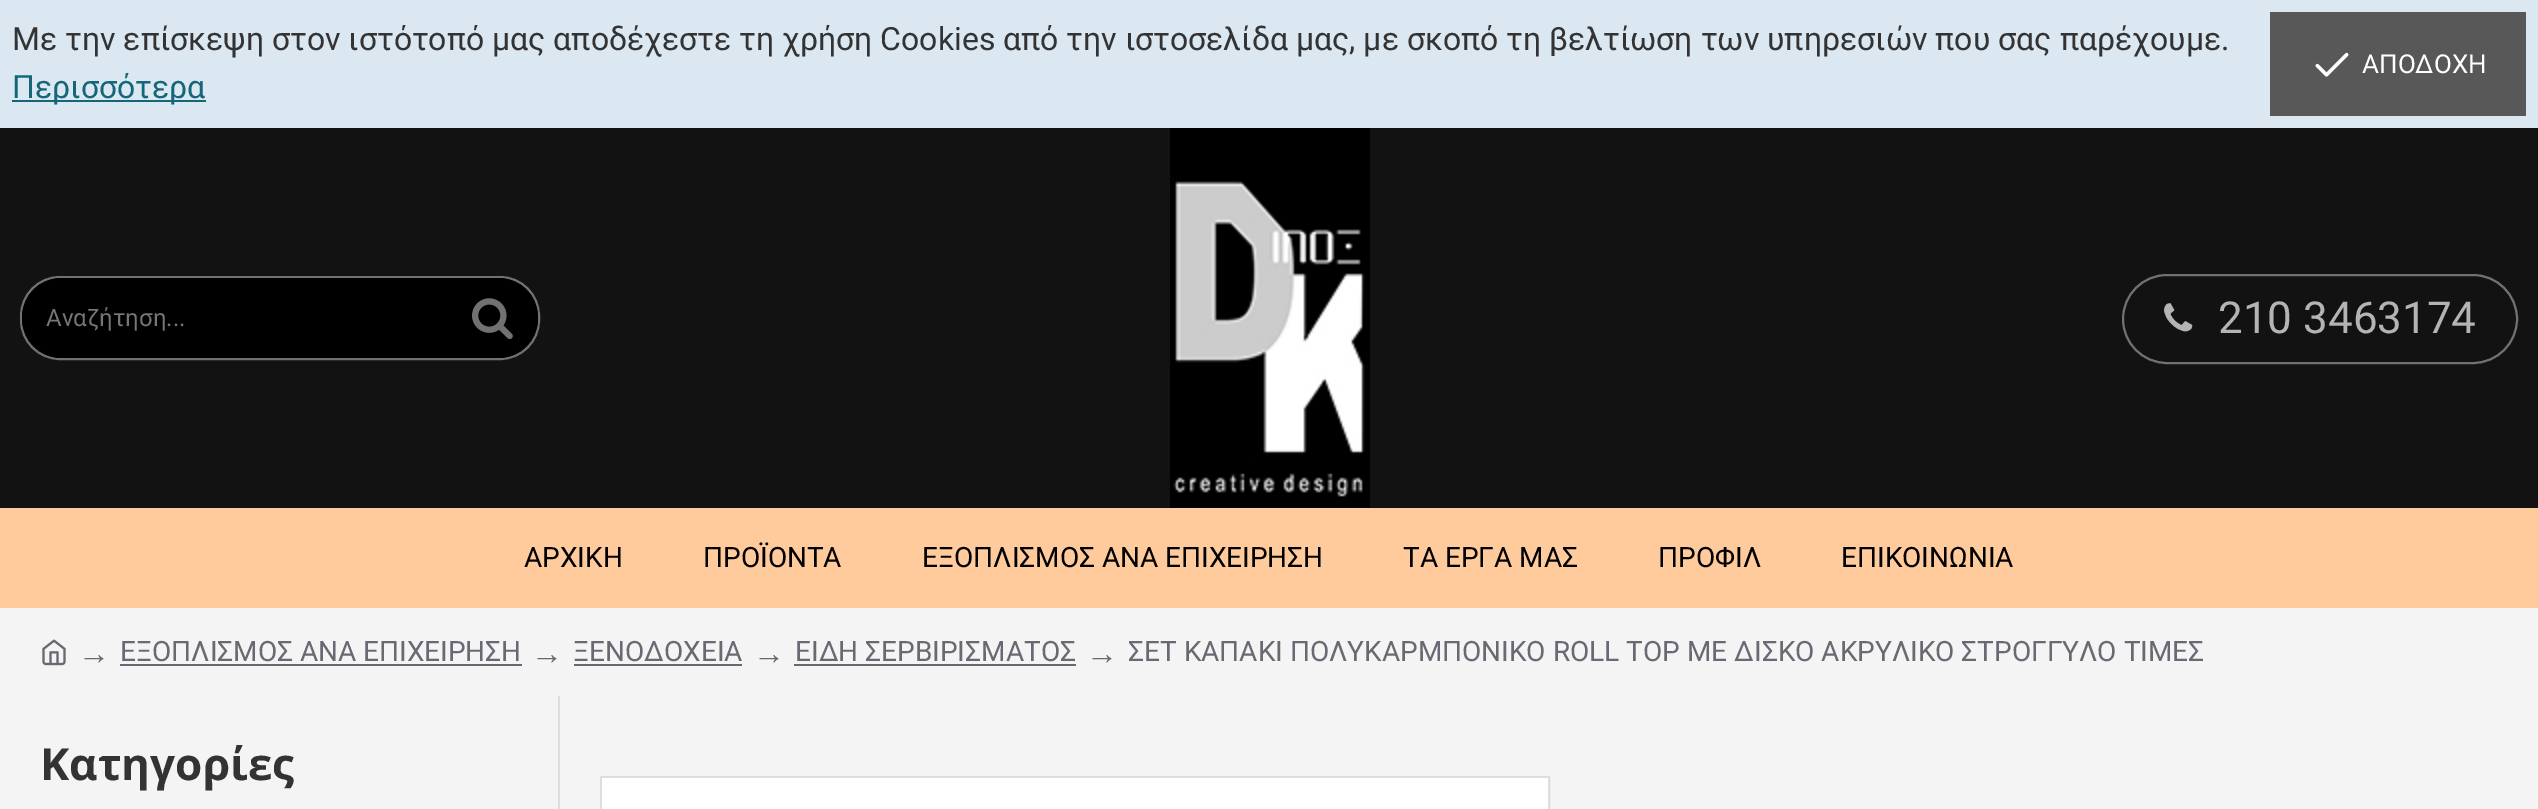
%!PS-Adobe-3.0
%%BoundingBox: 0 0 2538 809
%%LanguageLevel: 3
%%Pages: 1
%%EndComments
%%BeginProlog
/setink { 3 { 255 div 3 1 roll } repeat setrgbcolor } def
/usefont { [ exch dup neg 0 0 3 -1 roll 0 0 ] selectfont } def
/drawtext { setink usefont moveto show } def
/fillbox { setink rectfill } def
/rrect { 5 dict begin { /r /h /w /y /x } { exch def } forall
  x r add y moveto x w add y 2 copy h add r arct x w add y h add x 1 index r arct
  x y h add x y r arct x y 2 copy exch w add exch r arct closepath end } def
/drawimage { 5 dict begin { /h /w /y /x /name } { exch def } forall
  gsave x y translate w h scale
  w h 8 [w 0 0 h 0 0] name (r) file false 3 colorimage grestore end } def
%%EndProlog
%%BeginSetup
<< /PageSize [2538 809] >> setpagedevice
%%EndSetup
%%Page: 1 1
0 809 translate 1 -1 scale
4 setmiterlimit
0 0 2538 809 244 244 244 fillbox
0 0 2538 128 219 232 242 fillbox
(Με την επίσκεψη στον ιστότοπό μας αποδέχεστε τη χρήση Cookies από την ιστοσελίδα μας, με σκοπό τη βελτίωση των υπηρεσιών που σας παρέχουμε.) 12 50 /Roboto-Regular 32 51 51 51 drawtext
12 100 194 2 20 102 120 fillbox
(Περισσότερα) 12 98 /Roboto-Regular 32 20 102 120 drawtext
2270 12 256 104 88 88 88 fillbox
(assets/img1.rgb) 2315 52 34 25 drawimage
(ΑΠΟΔΟΧΗ) 2362 73 /Roboto-Regular 26 255 255 255 drawtext
0 128 2538 380 18 18 18 fillbox
113 113 113 setink
2 setlinewidth
21 277 518 82 39 rrect stroke
0 0 0 setink
62 278 moveto 448 278 lineto 448 358 lineto 62 358 lineto 40 358 22 340 22 318 curveto 22 296 40 278 62 278 curveto closepath fill
(Αναζήτηση...) 46 326 /Roboto-Regular 24 118 118 120 drawtext
0 0 0 setink
448 278 moveto 498 278 lineto 520 278 538 296 538 318 curveto 538 340 520 358 498 358 curveto 448 358 lineto closepath fill
(assets/img2.rgb) 472 298 41 42 drawimage
(assets/img3.rgb) 1170 128 200 380 drawimage
113 113 113 setink
2123 275 394 88 44 rrect stroke
(assets/img4.rgb) 2164 303 29 29 drawimage
(210 3463174) 2218 333 /Roboto-Regular 44 180 180 180 drawtext
0 508 2538 100 255 203 156 fillbox
(ΑΡΧΙΚΗ) 524 567 /Roboto-Regular 28 0 0 0 drawtext
(ΠΡΟΪΟΝΤΑ) 703 567 /Roboto-Regular 28 0 0 0 drawtext
(ΕΞΟΠΛΙΣΜΟΣ ΑΝΑ EΠΙΧΕΙΡΗΣΗ) 922 567 /Roboto-Regular 28 0 0 0 drawtext
(ΤΑ ΕΡΓΑ ΜΑΣ) 1403 567 /Roboto-Regular 28 0 0 0 drawtext
(ΠΡΟΦΙΛ) 1658 567 /Roboto-Regular 28 0 0 0 drawtext
(ΕΠΙΚΟΙΝΩΝΙΑ) 1841 567 /Roboto-Regular 28 0 0 0 drawtext
(assets/img5.rgb) 42 639 24 27 drawimage
(→) 78 664 /LiberationSerif-Regular 32 105 105 115 drawtext
(ΕΞΟΠΛΙΣΜΟΣ ΑΝΑ EΠΙΧΕΙΡΗΣΗ) 120 661 /Roboto-Regular 28 105 105 115 drawtext
120 664 402 2 105 105 115 fillbox
(→) 531 664 /LiberationSerif-Regular 32 105 105 115 drawtext
(ΞΕΝΟΔΟΧΕΙΑ) 573 661 /Roboto-Regular 28 105 105 115 drawtext
574 664 168 2 105 105 115 fillbox
(→) 753 664 /LiberationSerif-Regular 32 105 105 115 drawtext
(ΕΙΔΗ ΣΕΡΒΙΡΙΣΜΑΤΟΣ) 795 661 /Roboto-Regular 28 105 105 115 drawtext
794 664 282 2 105 105 115 fillbox
(→) 1086 664 /LiberationSerif-Regular 32 105 105 115 drawtext
(ΣΕΤ ΚΑΠΑΚΙ ΠΟΛΥΚΑΡΜΠΟΝΙΚΟ ROLL TOP ΜΕ ΔΙΣΚΟ ΑΚΡΥΛΙΚΟ ΣΤΡΟΓΓΥΛΟ ΤΙΜΕΣ) 1128 661 /Roboto-Regular 28 105 105 115 drawtext
558 696 2 113 221 221 221 fillbox
(Κατηγορίες) 40 780 /OpenSans-Bold 44 51 51 51 drawtext
221 221 221 setink
601 777 948 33 rectstroke
602 778 946 31 255 255 255 fillbox
showpage
%%EOF
